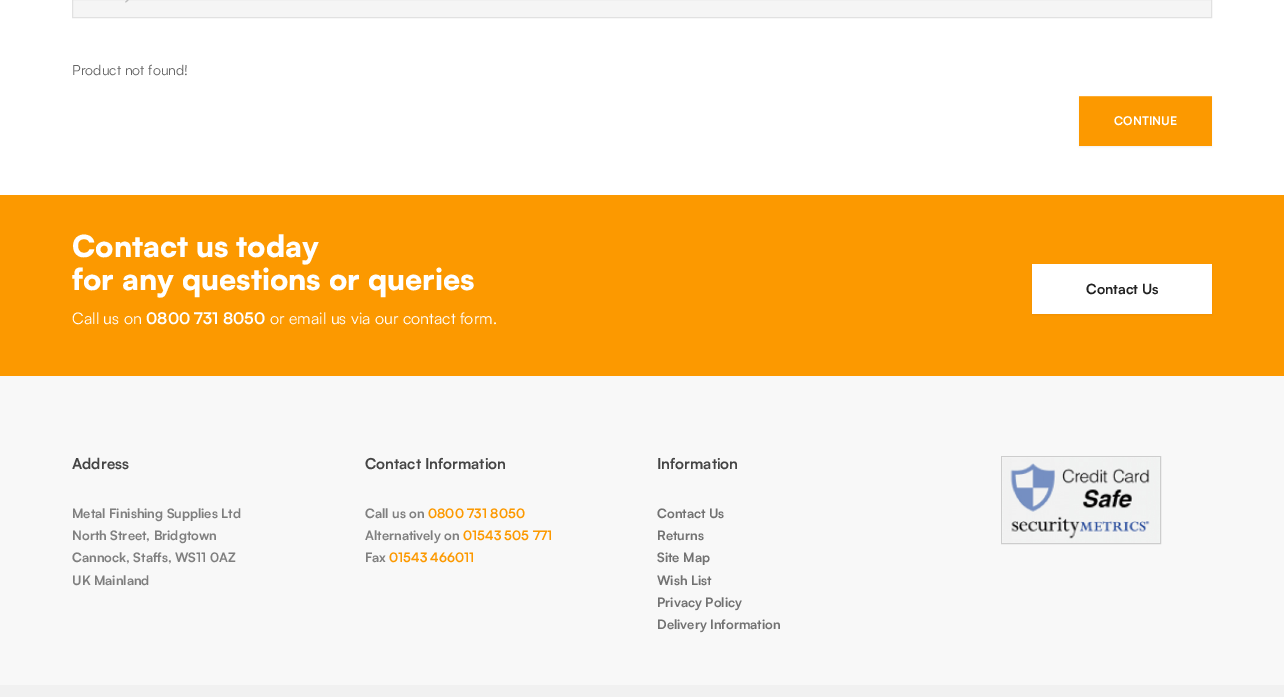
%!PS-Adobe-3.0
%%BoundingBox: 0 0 1284 697
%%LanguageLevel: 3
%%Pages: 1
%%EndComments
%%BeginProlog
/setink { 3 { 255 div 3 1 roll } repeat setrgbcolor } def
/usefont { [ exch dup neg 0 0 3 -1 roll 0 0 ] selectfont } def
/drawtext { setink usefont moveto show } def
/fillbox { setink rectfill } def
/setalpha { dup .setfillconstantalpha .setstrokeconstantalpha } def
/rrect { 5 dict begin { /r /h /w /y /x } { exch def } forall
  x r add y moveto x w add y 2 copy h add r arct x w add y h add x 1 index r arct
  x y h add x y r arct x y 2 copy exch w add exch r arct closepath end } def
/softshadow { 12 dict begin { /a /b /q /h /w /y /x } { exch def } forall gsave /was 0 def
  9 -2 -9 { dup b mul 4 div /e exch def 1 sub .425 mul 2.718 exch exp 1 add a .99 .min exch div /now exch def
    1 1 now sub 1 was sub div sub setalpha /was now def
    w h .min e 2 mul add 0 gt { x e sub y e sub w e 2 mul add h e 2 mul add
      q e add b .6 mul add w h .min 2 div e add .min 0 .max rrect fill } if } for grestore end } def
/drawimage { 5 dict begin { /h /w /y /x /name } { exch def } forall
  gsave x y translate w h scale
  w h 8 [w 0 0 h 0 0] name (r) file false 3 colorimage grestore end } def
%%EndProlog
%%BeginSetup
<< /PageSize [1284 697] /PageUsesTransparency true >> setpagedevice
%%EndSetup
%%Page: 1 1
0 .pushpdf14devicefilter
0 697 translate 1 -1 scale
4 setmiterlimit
0 0 1284 697 255 255 255 fillbox
245 245 245 setink
72.5 -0.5 moveto 1211.5 -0.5 lineto 1211.5 17.5 lineto 72.5 17.5 lineto closepath gsave fill grestore
225 225 225 setink
stroke
187 187 187 setink
125 2 moveto 133.5 -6.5 lineto 134.5 -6 lineto 126 2.5 lineto closepath fill
(Product not found!) 72 75 /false-Regular 14 102 102 102 drawtext
0 0 0 setink
1079 97 133 50 0 1 0.05 softshadow
1079 97 133 49 252 153 0 fillbox
1079 96 133 1 253 173 51 fillbox
(CONTINUE) 1114 125 /false-Bold 12 255 255 255 drawtext
0 195 1284 181 252 153 0 fillbox
(Contact us today) 72 257 /Satoshi-Black 30 255 255 255 drawtext
(for any questions or queries) 72 290 /Satoshi-Black 30 255 255 255 drawtext
(Call us on) 72 324 /false-Regular 16 255 255 255 drawtext
(0800 731 8050) 146 324 /false-Bold 16 255 255 255 drawtext
(or email us via our contact form.) 270 324 /false-Regular 16 255 255 255 drawtext
0 0 0 setink
1032 265 180 50 0 1 0.05 softshadow
1032 264 180 50 255 255 255 fillbox
(Contact Us) 1086 294 /false-Bold 14 34 34 34 drawtext
0 376 1284 309 248 248 248 fillbox
(Address) 72 469 /false-Bold 15 68 68 68 drawtext
(Metal Finishing Supplies Ltd) 72 518 /false-Bold 13 127 127 127 drawtext
(North Street, Bridgtown) 72 540 /false-Bold 13 127 127 127 drawtext
(Cannock, Staffs, WS11 0AZ) 72 562 /false-Bold 13 127 127 127 drawtext
(UK Mainland) 72 585 /false-Bold 13 127 127 127 drawtext
(Contact Information) 365 469 /false-Bold 15 68 68 68 drawtext
(Call us on) 365 518 /false-Bold 13 127 127 127 drawtext
(0800 731 8050) 428 518 /false-Bold 13 252 153 0 drawtext
(Alternatively on) 365 540 /false-Bold 13 127 127 127 drawtext
(01543 505 771) 463 540 /false-Bold 13 252 153 0 drawtext
(Fax) 365 562 /false-Bold 13 127 127 127 drawtext
(01543 466011) 389 562 /false-Bold 13 252 153 0 drawtext
(Information) 657 469 /false-Bold 15 68 68 68 drawtext
(Contact Us) 657 518 /false-Bold 13 114 114 114 drawtext
(Returns) 657 540 /false-Bold 13 114 114 114 drawtext
(Site Map) 657 562 /false-Bold 13 114 114 114 drawtext
(Wish List) 657 585 /false-Bold 13 114 114 114 drawtext
(Privacy Policy) 657 607 /false-Bold 13 114 114 114 drawtext
(Delivery Information) 657 629 /false-Bold 13 114 114 114 drawtext
205 205 205 setink
1001.5 456.5 159 87 rectstroke
(assets/img1.rgb) 1002 457 158 86 drawimage
0 685 1284 12 241 241 241 fillbox
.poppdf14devicefilter showpage
%%EOF
